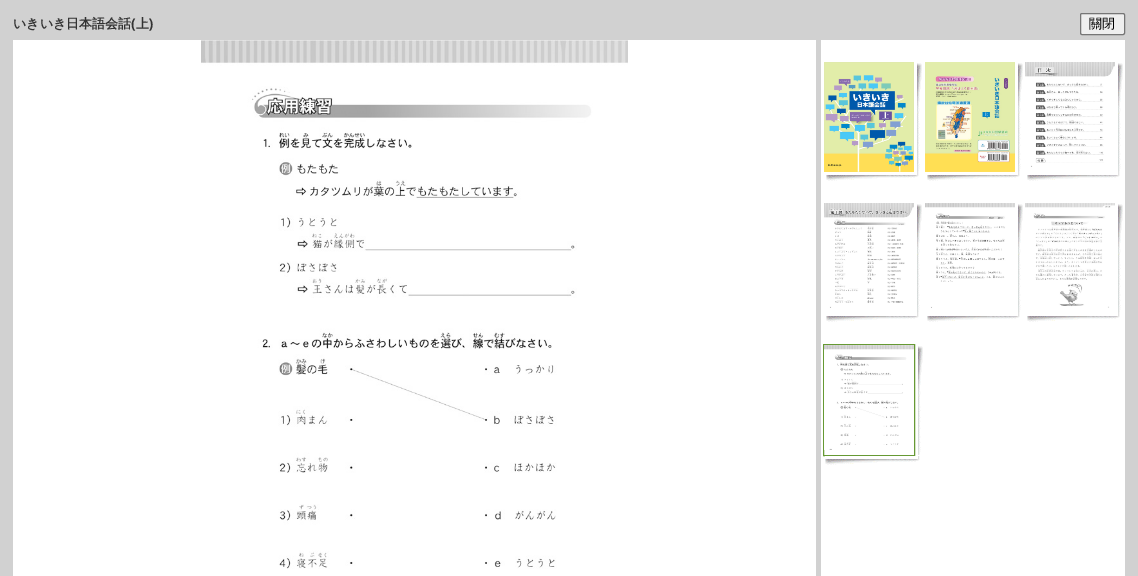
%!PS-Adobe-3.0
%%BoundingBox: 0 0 1138 576
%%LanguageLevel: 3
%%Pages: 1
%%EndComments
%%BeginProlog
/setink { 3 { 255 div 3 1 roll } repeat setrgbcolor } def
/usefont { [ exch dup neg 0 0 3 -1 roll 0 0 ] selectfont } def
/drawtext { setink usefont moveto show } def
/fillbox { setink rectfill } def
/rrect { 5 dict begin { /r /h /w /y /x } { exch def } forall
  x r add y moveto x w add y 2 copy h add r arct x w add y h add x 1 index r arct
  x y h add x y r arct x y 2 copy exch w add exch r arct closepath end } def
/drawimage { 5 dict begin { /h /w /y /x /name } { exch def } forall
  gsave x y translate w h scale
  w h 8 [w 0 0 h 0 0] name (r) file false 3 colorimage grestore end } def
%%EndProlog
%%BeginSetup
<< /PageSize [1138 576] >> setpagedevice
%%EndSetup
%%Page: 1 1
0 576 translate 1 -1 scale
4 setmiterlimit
0 0 1138 576 209 209 209 fillbox
(いきいき日本語会話) 13 28 /WenQuanYiZenHei-Bold 13 51 51 51 drawtext
(\() 131 28 /LiberationSans-Bold 13 51 51 51 drawtext
(上) 136 28 /WenQuanYiZenHei-Bold 13 51 51 51 drawtext
(\)) 149 28 /LiberationSans-Bold 13 51 51 51 drawtext
239 239 239 setink
1080.5 13.5 44 21 1.5 rrect gsave fill grestore
118 118 118 setink
stroke
(關閉) 1089 28 /WenQuanYiZenHei-Medium 13 0 0 0 drawtext
13 40 803 536 255 255 255 fillbox
(assets/img1.rgb) 201 40 427 529 drawimage
821 40 304 536 255 255 255 fillbox
(assets/img2.rgb) 824 62 90 110 drawimage
(assets/img3.rgb) 917 63 5 109 drawimage
(assets/img4.rgb) 826 172 93 9 drawimage
(assets/img5.rgb) 925 62 90 110 drawimage
(assets/img3.rgb) 1018 63 5 109 drawimage
(assets/img6.rgb) 927 172 93 9 drawimage
(assets/img7.rgb) 1025 62 90 105 drawimage
(assets/img3.rgb) 1118 63 5 109 drawimage
(assets/img8.rgb) 1027 172 93 9 drawimage
(assets/img9.rgb) 824 203 90 105 drawimage
(assets/img3.rgb) 917 204 5 109 drawimage
(assets/img4.rgb) 826 313 93 9 drawimage
(assets/img10.rgb) 925 203 90 105 drawimage
(assets/img3.rgb) 1018 204 5 109 drawimage
(assets/img6.rgb) 927 313 93 9 drawimage
(assets/img11.rgb) 1025 203 90 105 drawimage
(assets/img3.rgb) 1118 204 5 109 drawimage
(assets/img8.rgb) 1027 313 93 9 drawimage
102 153 51 setink
823.5 344.5 91 111 rectstroke
(assets/img12.rgb) 824 345 90 105 drawimage
(assets/img3.rgb) 918 346 5 109 drawimage
(assets/img13.rgb) 825 456 95 9 drawimage
showpage
%%EOF
